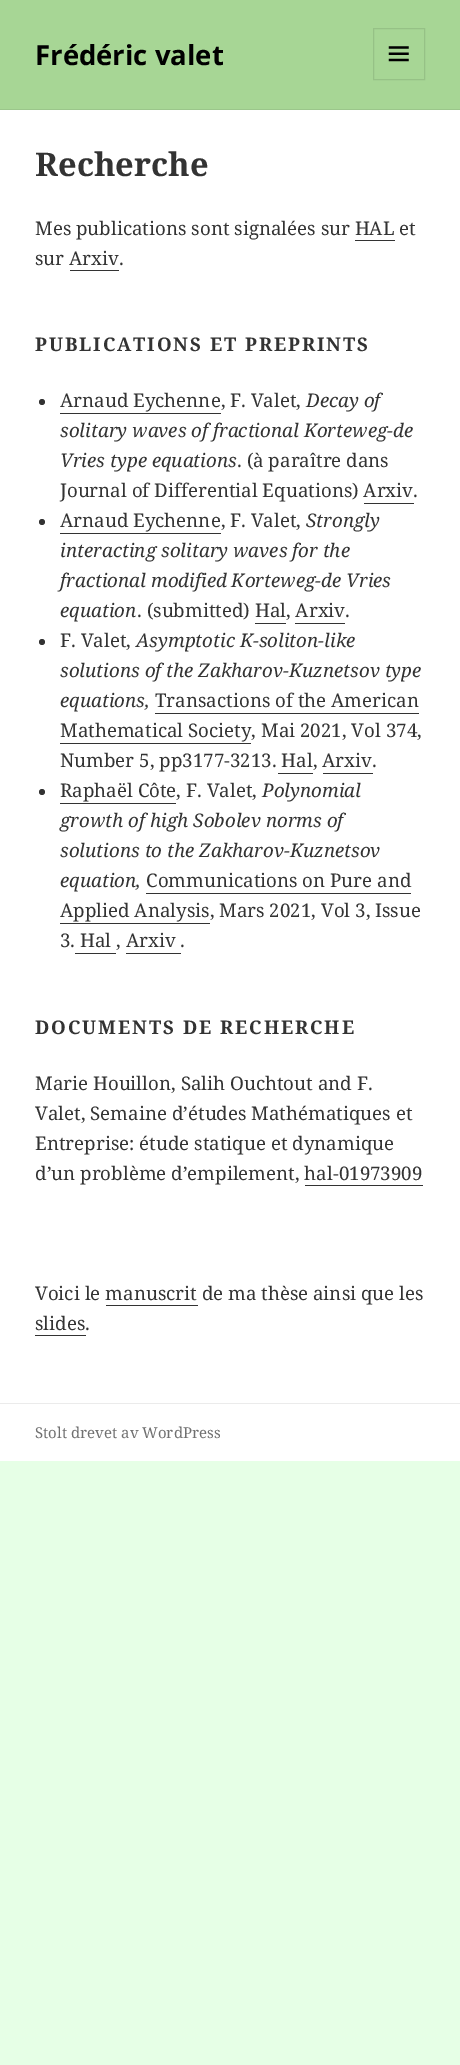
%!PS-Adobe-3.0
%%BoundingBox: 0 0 460 2065
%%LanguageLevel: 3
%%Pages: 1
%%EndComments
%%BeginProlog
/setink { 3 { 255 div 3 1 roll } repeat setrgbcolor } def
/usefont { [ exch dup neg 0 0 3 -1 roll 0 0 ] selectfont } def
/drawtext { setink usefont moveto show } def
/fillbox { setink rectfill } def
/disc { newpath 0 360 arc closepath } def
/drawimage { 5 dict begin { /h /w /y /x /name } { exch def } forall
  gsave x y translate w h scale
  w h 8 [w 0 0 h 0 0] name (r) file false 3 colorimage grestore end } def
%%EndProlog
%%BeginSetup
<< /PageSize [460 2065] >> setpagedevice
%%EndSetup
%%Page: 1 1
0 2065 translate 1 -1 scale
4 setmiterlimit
0 0 460 2065 230 255 230 fillbox
0 0 460 109 167 214 149 fillbox
0 109 460 1 155 198 139 fillbox
(Frédéric valet) 35 65 /NotoSans-Bold 27.5 0 0 0 drawtext
150 193 134 setink
373.5 28.5 51 51 rectstroke
(assets/img1.rgb) 388 46 21 16 drawimage
0 110 460 1293 255 255 255 fillbox
(Recherche) 35 176 /NotoSerif-Bold 32.5 51 51 51 drawtext
(Mes publications sont signalées sur HAL et) 35 235 /NotoSerif-Regular 18.75 51 51 51 drawtext
355 240 40 1 51 51 51 fillbox
(sur Arxiv.) 35 265 /NotoSerif-Regular 18.75 51 51 51 drawtext
70 270 49 1 51 51 51 fillbox
/NotoSerif-Bold 18.75 usefont
35 351 moveto 1.9 0 (PUBLICATIONS ET PREPRINTS) ashow
42 402 3 disc fill
(Arnaud Eychenne, F. Valet,) 60 407 /NotoSerif-Regular 18.75 51 51 51 drawtext
60 413 161 1 51 51 51 fillbox
(Decay of) 306 407 /NotoSerif-Italic 18.75 51 51 51 drawtext
(solitary waves of fractional Korteweg-de) 60 437 /NotoSerif-Italic 18.75 51 51 51 drawtext
(Vries type equations) 60 467 /NotoSerif-Italic 18.75 51 51 51 drawtext
(. \(à paraître dans) 237 467 /NotoSerif-Regular 18.75 51 51 51 drawtext
(Journal of Differential Equations\) Arxiv.) 60 497 /NotoSerif-Regular 18.75 51 51 51 drawtext
364 503 50 1 51 51 51 fillbox
42 522 3 disc fill
(Arnaud Eychenne, F. Valet,) 60 527 /NotoSerif-Regular 18.75 51 51 51 drawtext
60 533 161 1 51 51 51 fillbox
(Strongly) 306 527 /NotoSerif-Italic 18.75 51 51 51 drawtext
(interacting solitary waves for the) 60 557 /NotoSerif-Italic 18.75 51 51 51 drawtext
(fractional modified Korteweg-de Vries) 60 587 /NotoSerif-Italic 18.75 51 51 51 drawtext
(equation) 60 617 /NotoSerif-Italic 18.75 51 51 51 drawtext
(. \(submitted\) Hal, Arxiv.) 137 617 /NotoSerif-Regular 18.75 51 51 51 drawtext
255 623 31 1 51 51 51 fillbox
295 623 50 1 51 51 51 fillbox
42 642 3 disc fill
(F. Valet,) 60 647 /NotoSerif-Regular 18.75 51 51 51 drawtext
(Asymptotic K-soliton-like) 136 647 /NotoSerif-Italic 18.75 51 51 51 drawtext
(solutions of the Zakharov-Kuznetsov type) 60 677 /NotoSerif-Italic 18.75 51 51 51 drawtext
(equations,) 60 707 /NotoSerif-Italic 18.75 51 51 51 drawtext
(Transactions of the American) 155 707 /NotoSerif-Regular 18.75 51 51 51 drawtext
155 713 264 1 51 51 51 fillbox
(Mathematical Society, Mai 2021, Vol 374,) 60 737 /NotoSerif-Regular 18.75 51 51 51 drawtext
60 743 191 1 51 51 51 fillbox
(Number 5, pp3177-3213. Hal, Arxiv.) 60 767 /NotoSerif-Regular 18.75 51 51 51 drawtext
278 773 35 1 51 51 51 fillbox
323 773 50 1 51 51 51 fillbox
42 792 3 disc fill
(Raphaël Côte, F. Valet,) 60 797 /NotoSerif-Regular 18.75 51 51 51 drawtext
60 803 116 1 51 51 51 fillbox
(Polynomial) 262 797 /NotoSerif-Italic 18.75 51 51 51 drawtext
(growth of high Sobolev norms of) 60 827 /NotoSerif-Italic 18.75 51 51 51 drawtext
(solutions to the Zakharov-Kuznetsov) 60 857 /NotoSerif-Italic 18.75 51 51 51 drawtext
(equation,) 60 887 /NotoSerif-Italic 18.75 51 51 51 drawtext
(Communications on Pure and) 146 887 /NotoSerif-Regular 18.75 51 51 51 drawtext
146 893 265 1 51 51 51 fillbox
(Applied Analysis, Mars 2021, Vol 3, Issue) 60 917 /NotoSerif-Regular 18.75 51 51 51 drawtext
60 923 150 1 51 51 51 fillbox
(3. Hal , Arxiv .) 60 947 /NotoSerif-Regular 18.75 51 51 51 drawtext
75 953 41 1 51 51 51 fillbox
126 953 55 1 51 51 51 fillbox
/NotoSerif-Bold 18.75 usefont
35 1034 moveto 1.9 0 (DOCUMENTS DE RECHERCHE) ashow
(Marie Houillon, Salih Ouchtout and F.) 35 1090 /NotoSerif-Regular 18.75 51 51 51 drawtext
(Valet, Semaine d’études Mathématiques et) 35 1120 /NotoSerif-Regular 18.75 51 51 51 drawtext
(Entreprise: étude statique et dynamique) 35 1150 /NotoSerif-Regular 18.75 51 51 51 drawtext
(d’un problème d’empilement, hal-01973909) 35 1180 /NotoSerif-Regular 18.75 51 51 51 drawtext
305 1185 118 1 51 51 51 fillbox
(Voici le manuscrit de ma thèse ainsi que les) 35 1300 /NotoSerif-Regular 18.75 51 51 51 drawtext
106 1305 92 1 51 51 51 fillbox
(slides.) 35 1330 /NotoSerif-Regular 18.75 51 51 51 drawtext
35 1335 51 1 51 51 51 fillbox
0 1404 460 57 255 255 255 fillbox
0 1403 460 1 235 235 235 fillbox
(Stolt drevet av WordPress) 35 1438 /NotoSerif-Regular 15 112 112 112 drawtext
showpage
%%EOF
